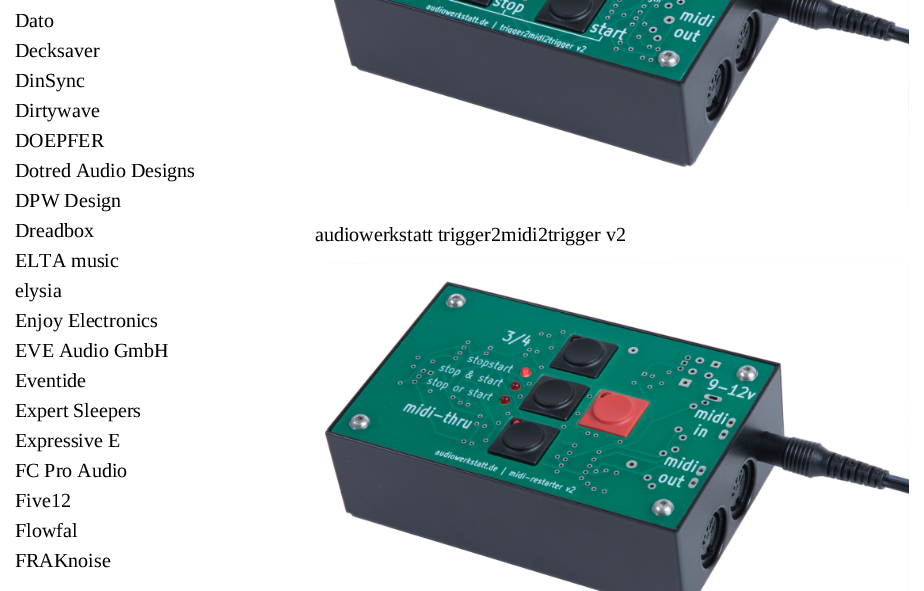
%!PS-Adobe-3.0
%%BoundingBox: 0 0 924 591
%%LanguageLevel: 3
%%Pages: 1
%%EndComments
%%BeginProlog
/setink { 3 { 255 div 3 1 roll } repeat setrgbcolor } def
/usefont { [ exch dup neg 0 0 3 -1 roll 0 0 ] selectfont } def
/drawtext { setink usefont moveto show } def
/fillbox { setink rectfill } def
/drawimage { 5 dict begin { /h /w /y /x /name } { exch def } forall
  gsave x y translate w h scale
  w h 8 [w 0 0 h 0 0] name (r) file false 3 colorimage grestore end } def
%%EndProlog
%%BeginSetup
<< /PageSize [924 591] >> setpagedevice
%%EndSetup
%%Page: 1 1
0 591 translate 1 -1 scale
4 setmiterlimit
0 0 924 591 255 255 255 fillbox
(Dato) 15 27 /LiberationSerif-Regular 20 0 0 0 drawtext
(Decksaver) 15 57 /LiberationSerif-Regular 20 0 0 0 drawtext
(DinSync) 15 87 /LiberationSerif-Regular 20 0 0 0 drawtext
(Dirtywave) 15 117 /LiberationSerif-Regular 20 0 0 0 drawtext
(DOEPFER) 15 147 /LiberationSerif-Regular 20 0 0 0 drawtext
(Dotred Audio Designs) 15 177 /LiberationSerif-Regular 20 0 0 0 drawtext
(DPW Design) 15 207 /LiberationSerif-Regular 20 0 0 0 drawtext
(Dreadbox) 15 237 /LiberationSerif-Regular 20 0 0 0 drawtext
(ELTA music) 15 267 /LiberationSerif-Regular 20 0 0 0 drawtext
(elysia) 15 297 /LiberationSerif-Regular 20 0 0 0 drawtext
(Enjoy Electronics) 15 327 /LiberationSerif-Regular 20 0 0 0 drawtext
(EVE Audio GmbH) 15 357 /LiberationSerif-Regular 20 0 0 0 drawtext
(Eventide) 15 387 /LiberationSerif-Regular 20 0 0 0 drawtext
(Expert Sleepers) 15 417 /LiberationSerif-Regular 20 0 0 0 drawtext
(Expressive E) 15 447 /LiberationSerif-Regular 20 0 0 0 drawtext
(FC Pro Audio) 15 477 /LiberationSerif-Regular 20 0 0 0 drawtext
(Five12) 15 507 /LiberationSerif-Regular 20 0 0 0 drawtext
(Flowfal) 15 537 /LiberationSerif-Regular 20 0 0 0 drawtext
(FRAKnoise) 15 567 /LiberationSerif-Regular 20 0 0 0 drawtext
(assets/img1.rgb) 333 0 576 206 drawimage
(audiowerkstatt trigger2midi2trigger v2) 315 241 /LiberationSerif-Regular 20 0 0 0 drawtext
(assets/img2.rgb) 324 263 585 328 drawimage
showpage
%%EOF
